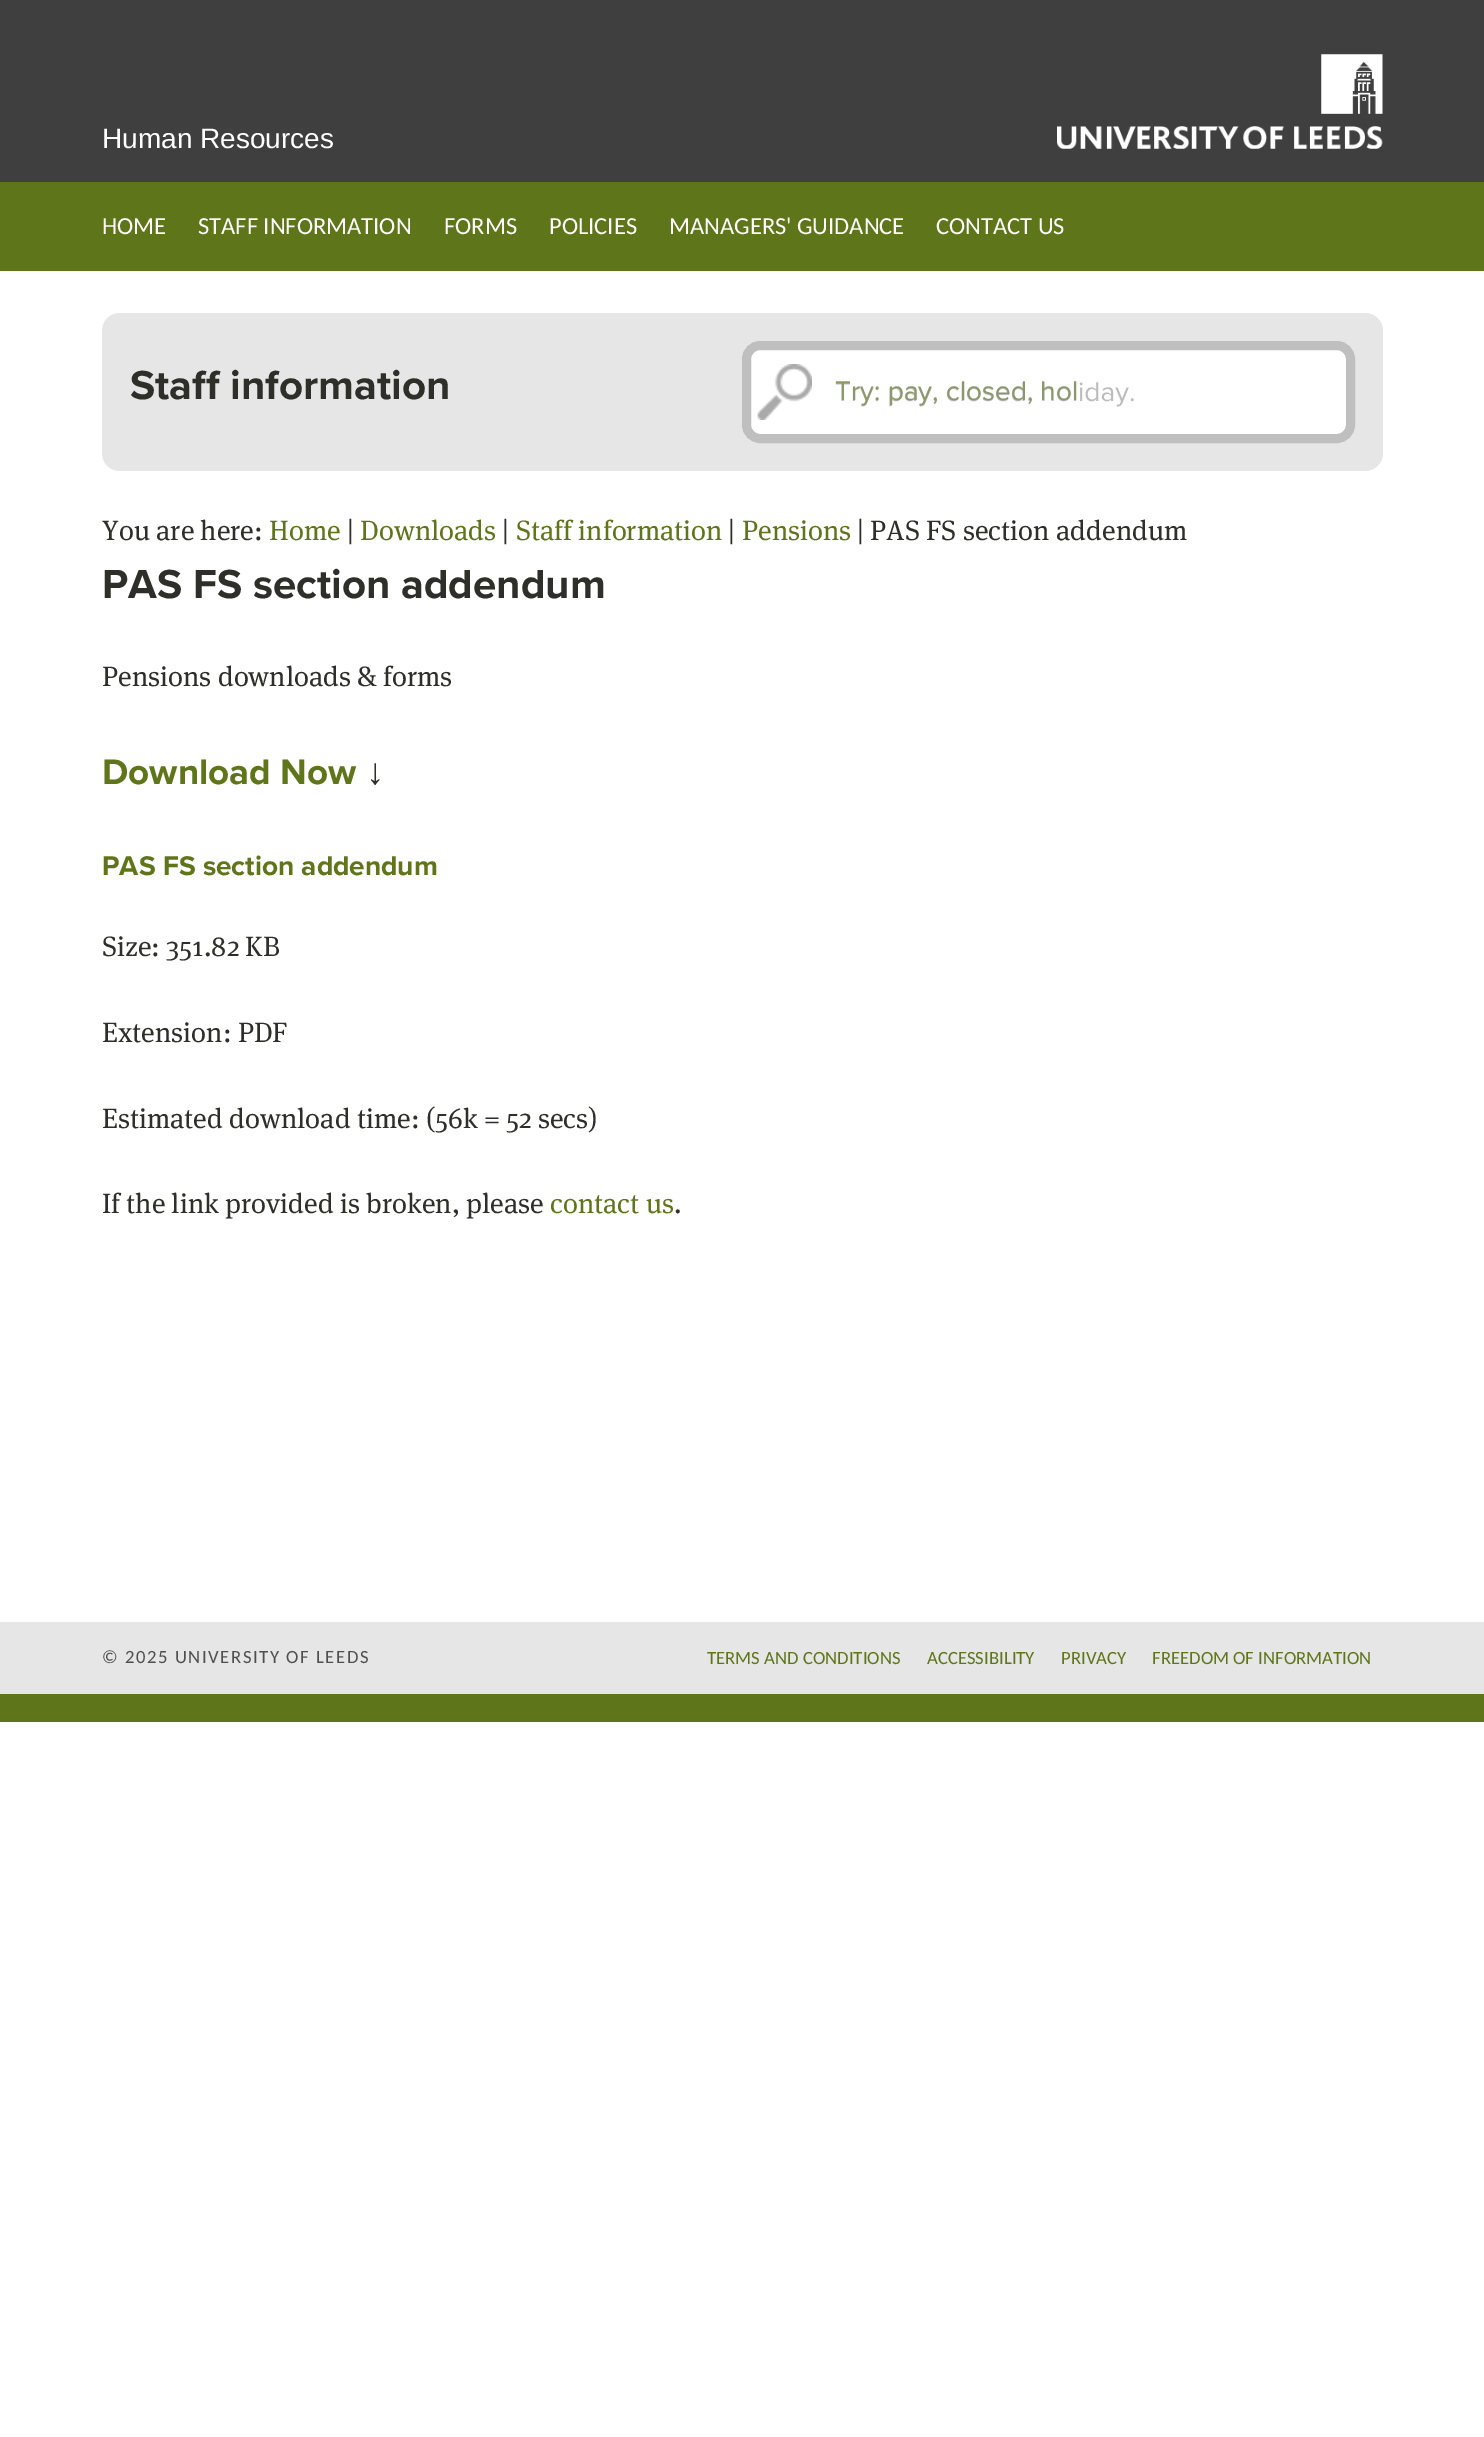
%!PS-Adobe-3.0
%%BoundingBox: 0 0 1484 2437
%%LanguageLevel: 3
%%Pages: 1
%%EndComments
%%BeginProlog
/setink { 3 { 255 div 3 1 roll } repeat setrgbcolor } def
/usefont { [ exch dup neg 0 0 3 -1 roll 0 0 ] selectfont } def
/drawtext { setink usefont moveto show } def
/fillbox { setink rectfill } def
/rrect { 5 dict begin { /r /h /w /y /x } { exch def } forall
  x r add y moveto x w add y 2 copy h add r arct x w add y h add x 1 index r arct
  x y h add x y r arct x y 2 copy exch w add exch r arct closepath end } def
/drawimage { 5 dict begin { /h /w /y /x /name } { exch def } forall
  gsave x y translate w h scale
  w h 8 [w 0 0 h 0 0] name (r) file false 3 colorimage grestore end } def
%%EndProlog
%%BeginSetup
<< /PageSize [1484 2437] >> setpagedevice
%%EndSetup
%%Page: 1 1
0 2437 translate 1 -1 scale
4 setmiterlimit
0 0 1484 2437 255 255 255 fillbox
0 0 1484 182 63 63 63 fillbox
(Human Resources) 102 148 /LiberationSans-Regular 28 255 255 255 drawtext
(assets/img1.rgb) 1057 54 326 95 drawimage
0 1694 1484 28 95 117 25 fillbox
0 182 1484 89 95 117 25 fillbox
(HOME) 102 234 /Carlito-Regular 24.5 255 255 255 drawtext
(STAFF INFORMATION) 198 234 /Carlito-Regular 24.5 255 255 255 drawtext
(FORMS) 444 234 /Carlito-Regular 24.5 255 255 255 drawtext
(POLICIES) 549 234 /Carlito-Regular 24.5 255 255 255 drawtext
(MANAGERS' GUIDANCE) 669 234 /Carlito-Regular 24.5 255 255 255 drawtext
(CONTACT US) 936 234 /Carlito-Regular 24.5 255 255 255 drawtext
230 230 230 setink
102 313 1281 158 18 rrect fill
(Staff information) 130 399 /ProximaNova-Bold 42 47 47 41 drawtext
255 255 255 setink
742 341 613 102 18 rrect fill
(assets/img2.rgb) 757 364 377 56 drawimage
191 191 191 setink
9 setlinewidth
746.5 345.5 604 93 13.5 rrect stroke
(Try: pay, closed, hol) 835 400 /ProximaNova-Regular 28 141 152 106 drawtext
(You are here:) 102 540 /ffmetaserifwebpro-Medium 28 47 47 41 drawtext
(Home) 269 540 /ffmetaserifwebpro-Medium 28 95 117 25 drawtext
(|) 347 540 /ffmetaserifwebpro-Medium 28 47 47 41 drawtext
(Downloads) 360 540 /ffmetaserifwebpro-Medium 28 95 117 25 drawtext
(|) 502 540 /ffmetaserifwebpro-Medium 28 47 47 41 drawtext
(Staff information) 516 540 /ffmetaserifwebpro-Medium 28 95 117 25 drawtext
(|) 728 540 /ffmetaserifwebpro-Medium 28 47 47 41 drawtext
(Pensions) 742 540 /ffmetaserifwebpro-Medium 28 95 117 25 drawtext
(| PAS FS section addendum) 857 540 /ffmetaserifwebpro-Medium 28 47 47 41 drawtext
(PAS FS section addendum) 102 598 /ProximaNova-Bold 42 47 47 41 drawtext
(Pensions downloads & forms) 102 686 /ffmetaserifwebpro-Medium 28 47 47 41 drawtext
(Download Now) 102 784 /ProximaNova-Bold 36.75 95 117 25 drawtext
(↓) 366 784 /LiberationSans-Bold 36.75 47 47 41 drawtext
(PAS FS section addendum) 102 875 /ProximaNova-Bold 28 95 117 25 drawtext
(Size: 351.82 KB) 102 956 /ffmetaserifwebpro-Medium 28 47 47 41 drawtext
(Extension: PDF) 102 1042 /ffmetaserifwebpro-Medium 28 47 47 41 drawtext
(Estimated download time: \(56k = 52 secs\)) 102 1128 /ffmetaserifwebpro-Medium 28 47 47 41 drawtext
(If the link provided is broken, please) 102 1213 /ffmetaserifwebpro-Medium 28 47 47 41 drawtext
(contact us) 550 1213 /ffmetaserifwebpro-Medium 28 95 117 25 drawtext
(.) 674 1213 /ffmetaserifwebpro-Medium 28 47 47 41 drawtext
0 1622 1484 72 230 230 230 fillbox
/Carlito-Regular 18.7 usefont
79 79 79 setink
102 1663 moveto 1.55 0 (© 2025 UNIVERSITY OF LEEDS) ashow
(TERMS AND CONDITIONS) 707 1664 /Carlito-Regular 18.7 95 117 25 drawtext
(ACCESSIBILITY) 927 1664 /Carlito-Regular 18.7 95 117 25 drawtext
(PRIVACY) 1061 1664 /Carlito-Regular 18.7 95 117 25 drawtext
(FREEDOM OF INFORMATION) 1152 1664 /Carlito-Regular 18.7 95 117 25 drawtext
showpage
%%EOF
